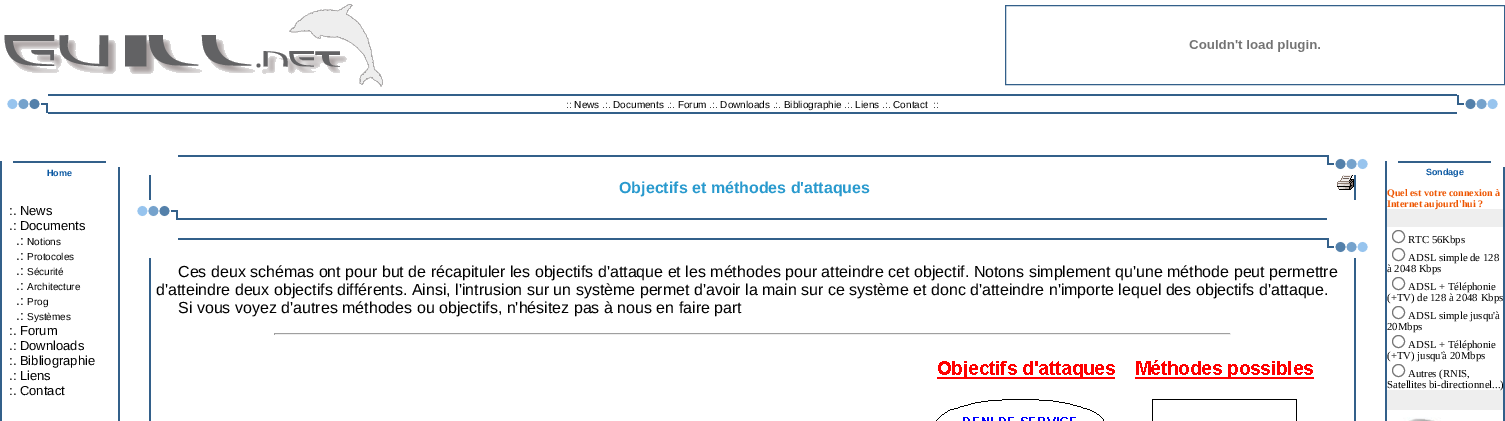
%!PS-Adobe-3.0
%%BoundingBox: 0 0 1505 421
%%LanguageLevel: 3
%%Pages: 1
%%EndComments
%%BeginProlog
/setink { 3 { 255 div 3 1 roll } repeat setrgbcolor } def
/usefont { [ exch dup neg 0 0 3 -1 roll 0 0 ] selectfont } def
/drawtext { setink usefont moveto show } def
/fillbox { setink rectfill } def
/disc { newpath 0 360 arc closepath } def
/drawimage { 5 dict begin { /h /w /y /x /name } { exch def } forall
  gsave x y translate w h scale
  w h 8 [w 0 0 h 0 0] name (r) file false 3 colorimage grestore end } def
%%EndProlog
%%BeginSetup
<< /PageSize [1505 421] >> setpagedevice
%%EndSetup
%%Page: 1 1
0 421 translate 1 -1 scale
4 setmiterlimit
0 0 1505 421 255 255 255 fillbox
(assets/img1.rgb) 4 4 379 83 drawimage
51 96 138 setink
1005.5 5.5 499 79 rectstroke
(assets/img2.rgb) 1189 40 131 12 drawimage
(assets/img3.rgb) 7 98 41 15 drawimage
48 94 1409 2 51 96 138 fillbox
48 112 1409 2 51 96 138 fillbox
(:: News .:. Documents .:. Forum .:. Downloads .:. Bibliographie .:. Liens .:. Contact) 566 108 /LiberationSans-Regular 10 0 0 0 drawtext
(::) 933 108 /LiberationSans-Regular 10 0 0 0 drawtext
(assets/img4.rgb) 1457 95 41 15 drawimage
(assets/img5.rgb) 0 161 106 6 drawimage
118 167 2 254 51 96 138 fillbox
0 167 2 254 51 96 138 fillbox
(Home) 47 176 /LiberationSans-Bold 9 10 88 162 drawtext
(:. News) 9 215 /LiberationSans-Regular 13 0 0 0 drawtext
(.: Documents) 9 230 /LiberationSans-Regular 13 0 0 0 drawtext
(.:) 16 245 /LiberationSans-Regular 13 0 0 0 drawtext
(Notions) 27 245 /LiberationSans-Regular 10 0 0 0 drawtext
(.:) 16 260 /LiberationSans-Regular 13 0 0 0 drawtext
(Protocoles) 27 260 /LiberationSans-Regular 10 0 0 0 drawtext
(.:) 16 275 /LiberationSans-Regular 13 0 0 0 drawtext
(Sécurité) 27 275 /LiberationSans-Regular 10 0 0 0 drawtext
(.:) 16 290 /LiberationSans-Regular 13 0 0 0 drawtext
(Architecture) 27 290 /LiberationSans-Regular 10 0 0 0 drawtext
(.:) 16 305 /LiberationSans-Regular 13 0 0 0 drawtext
(Prog) 27 305 /LiberationSans-Regular 10 0 0 0 drawtext
(.:) 16 320 /LiberationSans-Regular 13 0 0 0 drawtext
(Systèmes) 27 320 /LiberationSans-Regular 10 0 0 0 drawtext
(:. Forum) 9 335 /LiberationSans-Regular 13 0 0 0 drawtext
(.: Downloads) 9 350 /LiberationSans-Regular 13 0 0 0 drawtext
(:. Bibliographie) 9 365 /LiberationSans-Regular 13 0 0 0 drawtext
(.: Liens) 9 380 /LiberationSans-Regular 13 0 0 0 drawtext
(:. Contact) 9 395 /LiberationSans-Regular 13 0 0 0 drawtext
178 155 1149 2 51 96 138 fillbox
(assets/img4.rgb) 1327 155 41 15 drawimage
1354 175 2 25 51 96 138 fillbox
149 175 2 25 51 96 138 fillbox
(Objectifs et méthodes d'attaques) 619 193 /LiberationSans-Bold 16 41 154 206 drawtext
(assets/img6.rgb) 1337 175 17 15 drawimage
(assets/img3.rgb) 137 205 41 15 drawimage
178 218 1149 2 51 96 138 fillbox
178 238 1149 2 51 96 138 fillbox
(assets/img4.rgb) 1327 238 41 15 drawimage
1354 258 2 163 51 96 138 fillbox
149 258 2 163 51 96 138 fillbox
(Ces deux schémas ont pour but de récapituler les objectifs d'attaque et les méthodes pour atteindre cet objectif. Notons simplement qu'une méthode peut permettre) 178 277 /LiberationSans-Regular 16 0 0 0 drawtext
(d'atteindre deux objectifs différents. Ainsi, l'intrusion sur un système permet d'avoir la main sur ce système et donc d'atteindre n'importe lequel des objectifs d'attaque.) 156 295 /LiberationSans-Regular 16 0 0 0 drawtext
(Si vous voyez d'autres méthodes ou objectifs, n'hésitez pas à nous en faire part) 178 313 /LiberationSans-Regular 16 0 0 0 drawtext
274 333 957 1 159 159 159 fillbox
1230 333 1 2 238 238 238 fillbox
274 334 957 1 238 238 238 fillbox
274 333 1 2 159 159 159 fillbox
(assets/img7.rgb) 936 360 378 61 drawimage
(assets/img5.rgb) 1385 161 106 6 drawimage
1503 167 2 254 51 96 138 fillbox
1385 167 2 254 51 96 138 fillbox
(Sondage) 1426 175 /LiberationSans-Bold 9 10 88 162 drawtext
(Quel est votre connexion à) 1387 196 /LiberationSerif-Bold 10 238 85 0 drawtext
1387 209 116 18 238 238 238 fillbox
(Internet aujourd'hui ?) 1387 207 /LiberationSerif-Bold 10 238 85 0 drawtext
118 118 118 setink
1398.5 236.5 6 disc stroke
(RTC 56Kbps) 1408 243 /LiberationSerif-Regular 10.75 0 0 0 drawtext
118 118 118 setink
1398.5 254.5 6 disc stroke
(ADSL simple de 128) 1408 261 /LiberationSerif-Regular 10.75 0 0 0 drawtext
(à 2048 Kbps) 1387 272 /LiberationSerif-Regular 10.75 0 0 0 drawtext
118 118 118 setink
1398.5 283.5 6 disc stroke
(ADSL + Téléphonie) 1408 290 /LiberationSerif-Regular 10.75 0 0 0 drawtext
(\(+TV\) de 128 à 2048 Kbps) 1387 301 /LiberationSerif-Regular 10.75 0 0 0 drawtext
118 118 118 setink
1398.5 312.5 6 disc stroke
(ADSL simple jusqu'à) 1408 319 /LiberationSerif-Regular 10.75 0 0 0 drawtext
(20Mbps) 1387 330 /LiberationSerif-Regular 10.75 0 0 0 drawtext
118 118 118 setink
1398.5 341.5 6 disc stroke
(ADSL + Téléphonie) 1408 348 /LiberationSerif-Regular 10.75 0 0 0 drawtext
(\(+TV\) jusqu'à 20Mbps) 1387 359 /LiberationSerif-Regular 10.75 0 0 0 drawtext
118 118 118 setink
1398.5 370.5 6 disc stroke
(Autres \(RNIS,) 1408 377 /LiberationSerif-Regular 10.75 0 0 0 drawtext
1387 390 116 20 238 238 238 fillbox
(Satellites bi-directionnel...\)) 1387 388 /LiberationSerif-Regular 10.75 0 0 0 drawtext
(assets/img8.rgb) 1403 417 38 4 drawimage
showpage
%%EOF
